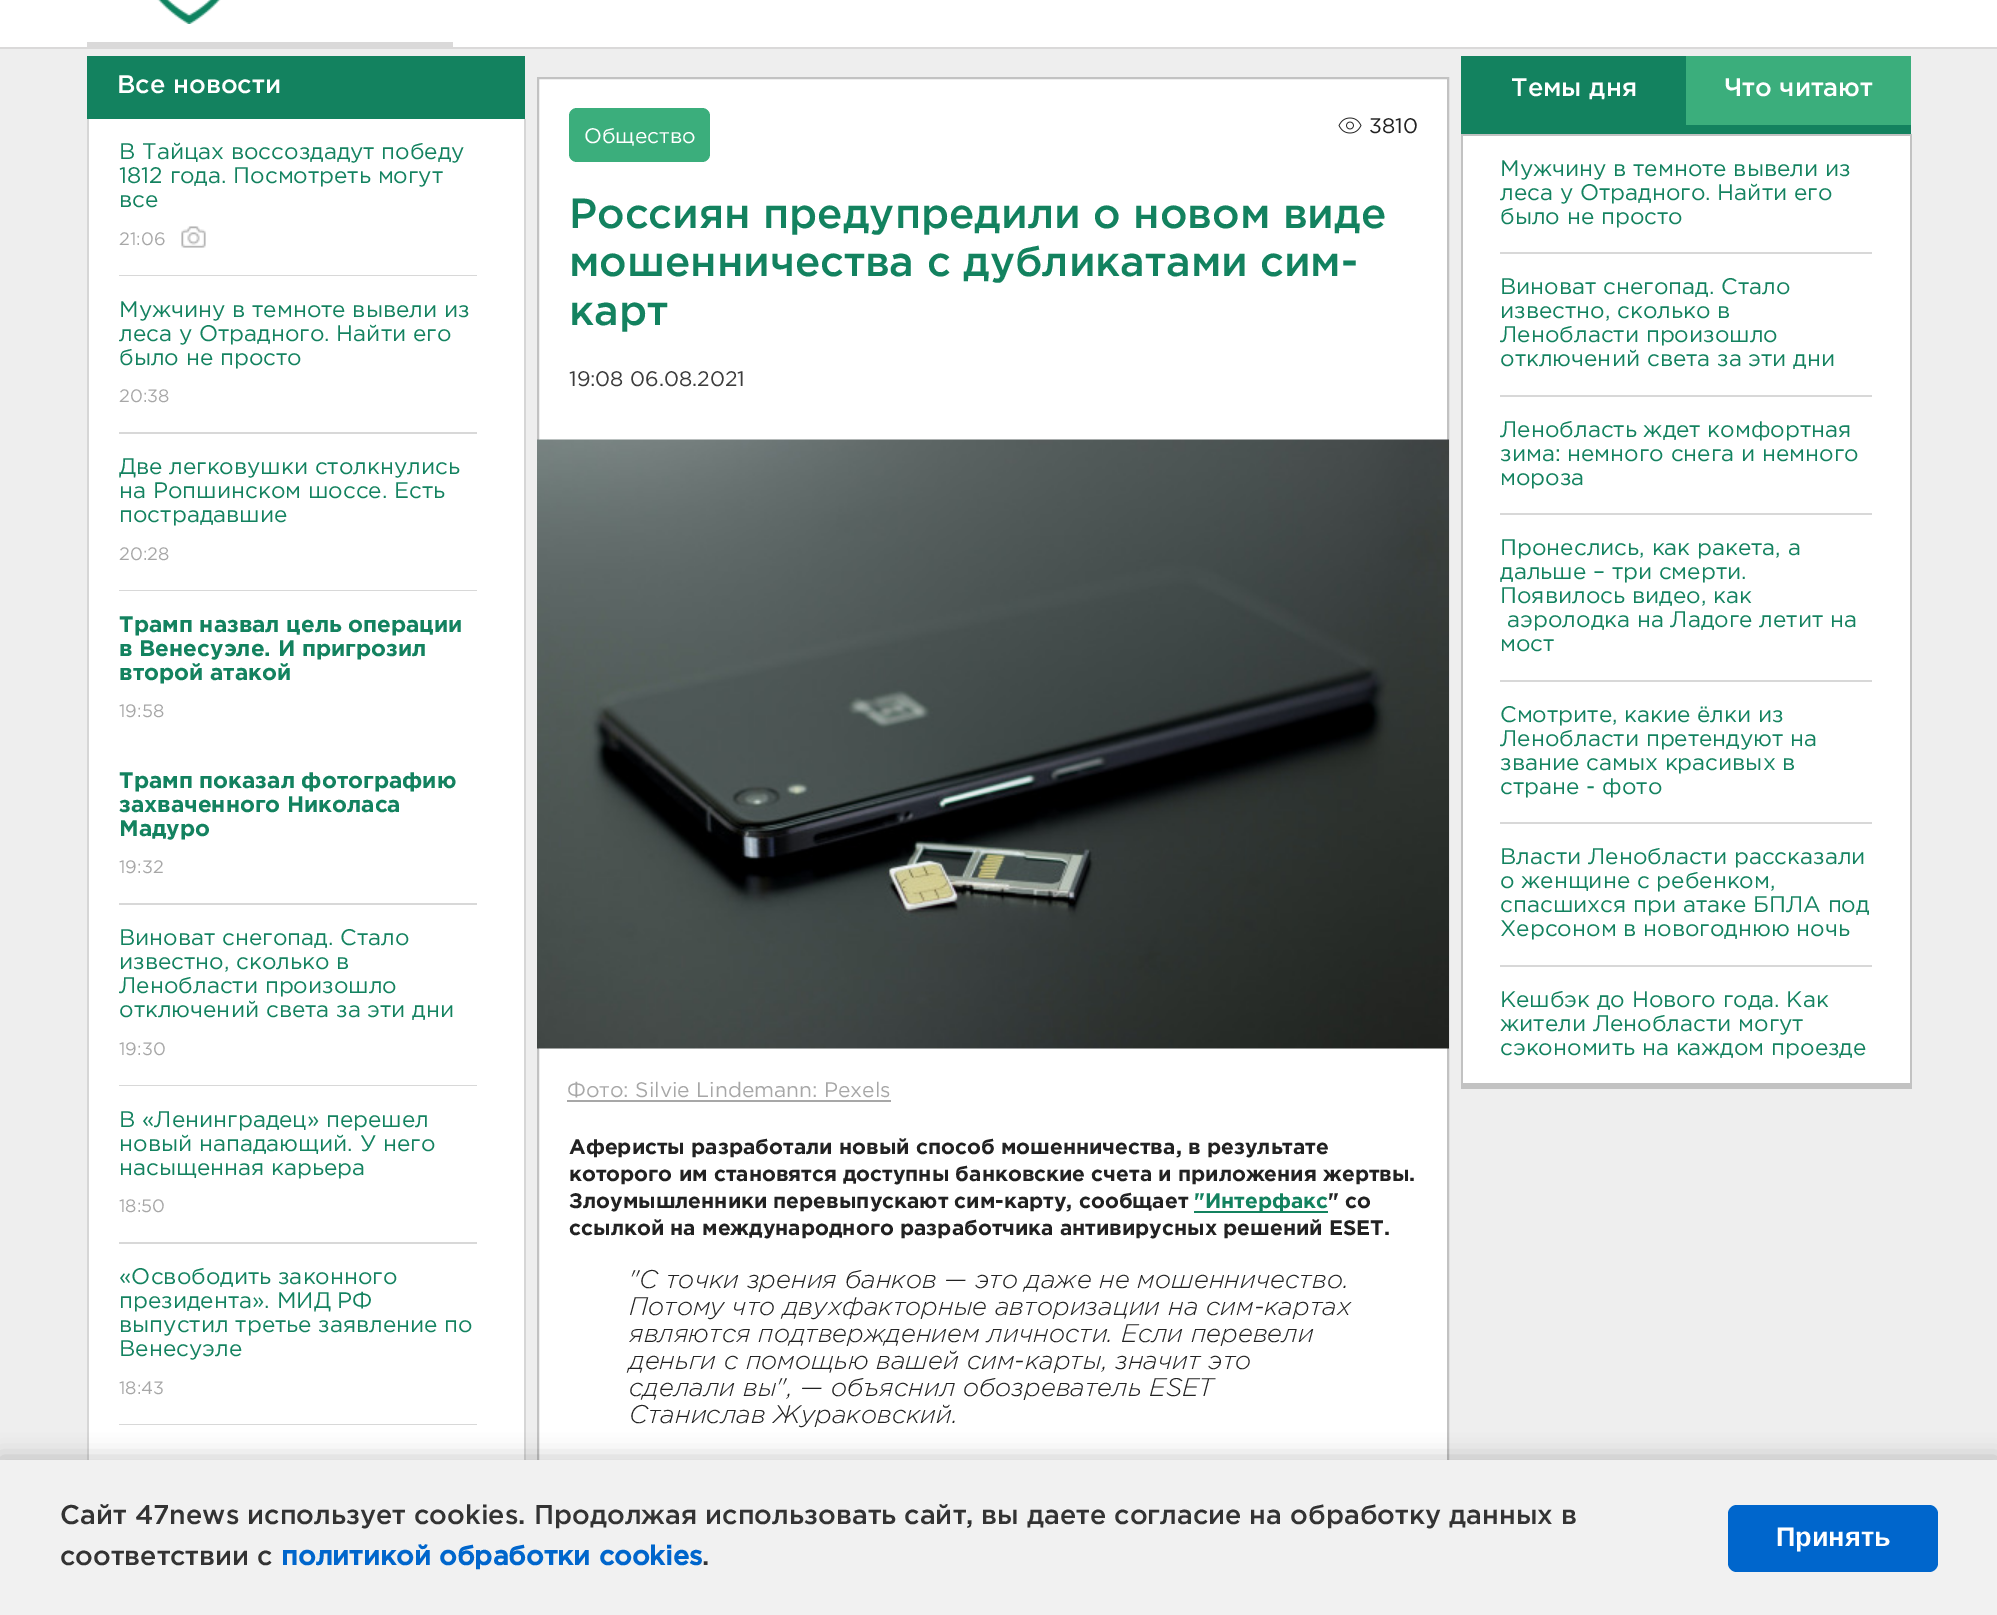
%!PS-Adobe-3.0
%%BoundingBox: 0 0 1997 1615
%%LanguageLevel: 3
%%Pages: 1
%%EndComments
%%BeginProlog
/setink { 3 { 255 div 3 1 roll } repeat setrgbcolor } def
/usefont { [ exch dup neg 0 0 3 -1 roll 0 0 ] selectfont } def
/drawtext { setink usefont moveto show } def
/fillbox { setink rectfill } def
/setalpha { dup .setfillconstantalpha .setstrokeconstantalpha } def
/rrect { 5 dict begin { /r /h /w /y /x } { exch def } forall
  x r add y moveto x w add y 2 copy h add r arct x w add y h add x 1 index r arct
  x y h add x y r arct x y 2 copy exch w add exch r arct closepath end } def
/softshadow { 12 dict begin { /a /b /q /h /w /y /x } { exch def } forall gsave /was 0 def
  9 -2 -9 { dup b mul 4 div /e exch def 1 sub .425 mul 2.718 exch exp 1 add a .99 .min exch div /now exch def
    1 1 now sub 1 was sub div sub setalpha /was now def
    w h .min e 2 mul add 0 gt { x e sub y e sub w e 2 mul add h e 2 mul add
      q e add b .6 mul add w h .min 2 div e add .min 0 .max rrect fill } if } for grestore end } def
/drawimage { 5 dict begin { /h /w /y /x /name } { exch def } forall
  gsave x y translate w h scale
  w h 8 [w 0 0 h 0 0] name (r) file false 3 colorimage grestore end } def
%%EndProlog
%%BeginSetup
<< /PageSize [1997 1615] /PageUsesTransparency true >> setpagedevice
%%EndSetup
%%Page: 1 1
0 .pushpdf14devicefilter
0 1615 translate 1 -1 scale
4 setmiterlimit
0 0 1997 1615 238 238 238 fillbox
0 0 1997 47 255 255 255 fillbox
0 47 1997 2 218 217 217 fillbox
87 42 366 5 218 217 217 fillbox
(assets/img1.rgb) 157 0 64 24 drawimage
87 56 438 63 19 130 95 fillbox
(Все новости) 117 93 /Gotham-Medium 25.5 255 255 255 drawtext
89 119 435 1341 255 255 255 fillbox
524 119 2 1341 214 214 214 fillbox
87 119 2 1341 214 214 214 fillbox
119 275 358 1 216 216 216 fillbox
(В Тайцах воссоздадут победу) 119 159 /Gotham-Regular 22.5 19 130 95 drawtext
(1812 года. Посмотреть могут) 119 183 /Gotham-Regular 22.5 19 130 95 drawtext
(все) 119 207 /Gotham-Regular 22.5 19 130 95 drawtext
(21:06) 119 245 /Gotham-Regular 18 167 167 167 drawtext
(assets/img2.rgb) 181 226 25 22 drawimage
119 432 358 2 216 216 216 fillbox
(Мужчину в темноте вывели из) 119 317 /Gotham-Regular 22.5 19 130 95 drawtext
(леса у Отрадного. Найти его) 119 341 /Gotham-Regular 22.5 19 130 95 drawtext
(было не просто) 119 365 /Gotham-Regular 22.5 19 130 95 drawtext
(20:38) 119 402 /Gotham-Regular 18 167 167 167 drawtext
119 590 358 1 216 216 216 fillbox
(Две легковушки столкнулись) 119 474 /Gotham-Regular 22.5 19 130 95 drawtext
(на Ропшинском шоссе. Есть) 119 498 /Gotham-Regular 22.5 19 130 95 drawtext
(пострадавшие) 119 522 /Gotham-Regular 22.5 19 130 95 drawtext
(20:28) 119 560 /Gotham-Regular 18 167 167 167 drawtext
(Трамп назвал цель операции) 119 632 /Gotham-Bold 22.5 19 130 95 drawtext
(в Венесуэле. И пригрозил) 119 656 /Gotham-Bold 22.5 19 130 95 drawtext
(второй атакой) 119 680 /Gotham-Bold 22.5 19 130 95 drawtext
(19:58) 119 717 /Gotham-Regular 18 167 167 167 drawtext
119 903 358 2 216 216 216 fillbox
(Трамп показал фотографию) 119 788 /Gotham-Bold 22.5 19 130 95 drawtext
(захваченного Николаса) 119 812 /Gotham-Bold 22.5 19 130 95 drawtext
(Мадуро) 119 836 /Gotham-Bold 22.5 19 130 95 drawtext
(19:32) 119 873 /Gotham-Regular 18 167 167 167 drawtext
119 1085 358 1 216 216 216 fillbox
(Виноват снегопад. Стало) 119 945 /Gotham-Regular 22.5 19 130 95 drawtext
(известно, сколько в) 119 969 /Gotham-Regular 22.5 19 130 95 drawtext
(Ленобласти произошло) 119 993 /Gotham-Regular 22.5 19 130 95 drawtext
(отключений света за эти дни) 119 1017 /Gotham-Regular 22.5 19 130 95 drawtext
(19:30) 119 1055 /Gotham-Regular 18 167 167 167 drawtext
119 1242 358 2 216 216 216 fillbox
(В «Ленинградец» перешел) 119 1127 /Gotham-Regular 22.5 19 130 95 drawtext
(новый нападающий. У него) 119 1151 /Gotham-Regular 22.5 19 130 95 drawtext
(насыщенная карьера) 119 1175 /Gotham-Regular 22.5 19 130 95 drawtext
(18:50) 119 1212 /Gotham-Regular 18 167 167 167 drawtext
119 1424 358 1 216 216 216 fillbox
(«Освободить законного) 119 1284 /Gotham-Regular 22.5 19 130 95 drawtext
(президента». МИД РФ) 119 1308 /Gotham-Regular 22.5 19 130 95 drawtext
(выпустил третье заявление по) 119 1332 /Gotham-Regular 22.5 19 130 95 drawtext
(Венесуэле) 119 1356 /Gotham-Regular 22.5 19 130 95 drawtext
(18:43) 119 1394 /Gotham-Regular 18 167 167 167 drawtext
539 79 908 1381 255 255 255 fillbox
194 194 194 setink
2 setlinewidth
538 78 910 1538 rectstroke
59 174 124 setink
569 108 141 54 8 rrect fill
(Общество) 584 143 /Gotham-Regular 21 255 255 255 drawtext
(assets/img3.rgb) 1338 117 24 17 drawimage
(3810) 1369 133 /Gotham-Regular 21 34 34 34 drawtext
(Россиян предупредили о новом виде) 569 228 /Gotham-Medium 42 19 130 95 drawtext
(мошенничества с дубликатами сим-) 569 276 /Gotham-Medium 42 19 130 95 drawtext
(карт) 569 325 /Gotham-Medium 42 19 130 95 drawtext
(19:08 06.08.2021) 569 386 /Gotham-Regular 21 60 60 60 drawtext
(assets/img4.rgb) 537 439 912 610 drawimage
(Фото: Silvie Lindemann: Pexels) 567 1097 /Gotham-Regular 21 167 167 167 drawtext
567 1100 324 2 167 167 167 fillbox
(Аферисты разработали новый способ мошенничества, в результате) 569 1154 /Gotham-Bold 21 34 34 34 drawtext
(которого им становятся доступны банковские счета и приложения жертвы.) 569 1181 /Gotham-Bold 21 34 34 34 drawtext
(Злоумышленники перевыпускают сим-карту, сообщает) 569 1208 /Gotham-Bold 21 34 34 34 drawtext
1194 1211 134 2 19 130 95 fillbox
("Интерфакс) 1194 1208 /Gotham-Bold 21 19 130 95 drawtext
(" со) 1328 1208 /Gotham-Bold 21 34 34 34 drawtext
(ссылкой на международного разработчика антивирусных решений ESET.) 569 1235 /Gotham-Bold 21 34 34 34 drawtext
("С точки зрения банков — это даже не мошенничество.) 629 1288 /Gotham-LightItalic 25.5 34 34 34 drawtext
(Потому что двухфакторные авторизации на сим-картах) 629 1315 /Gotham-LightItalic 25.5 34 34 34 drawtext
(являются подтверждением личности. Если перевели) 629 1342 /Gotham-LightItalic 25.5 34 34 34 drawtext
(деньги с помощью вашей сим-карты, значит это) 629 1369 /Gotham-LightItalic 25.5 34 34 34 drawtext
(сделали вы", — объяснил обозреватель ESET) 629 1396 /Gotham-LightItalic 25.5 34 34 34 drawtext
(Станислав Жураковский.) 629 1423 /Gotham-LightItalic 25.5 34 34 34 drawtext
1461 56 450 78 19 130 95 fillbox
(Темы дня) 1511 96 /Gotham-Medium 25.5 255 255 255 drawtext
1686 56 225 69 59 174 124 fillbox
(Что читают) 1724 96 /Gotham-Medium 25.5 255 255 255 drawtext
1463 136 447 947 255 255 255 fillbox
1461 134 450 2 194 194 194 fillbox
1910 134 2 955 194 194 194 fillbox
1461 1083 450 6 194 194 194 fillbox
1461 134 2 955 194 194 194 fillbox
1500 252 372 2 216 216 216 fillbox
(Мужчину в темноте вывели из) 1500 176 /Gotham-Regular 22.5 19 130 95 drawtext
(леса у Отрадного. Найти его) 1500 200 /Gotham-Regular 22.5 19 130 95 drawtext
(было не просто) 1500 224 /Gotham-Regular 22.5 19 130 95 drawtext
1500 395 372 2 216 216 216 fillbox
(Виноват снегопад. Стало) 1500 294 /Gotham-Regular 22.5 19 130 95 drawtext
(известно, сколько в) 1500 318 /Gotham-Regular 22.5 19 130 95 drawtext
(Ленобласти произошло) 1500 342 /Gotham-Regular 22.5 19 130 95 drawtext
(отключений света за эти дни) 1500 366 /Gotham-Regular 22.5 19 130 95 drawtext
1500 513 372 2 216 216 216 fillbox
(Ленобласть ждет комфортная) 1500 437 /Gotham-Regular 22.5 19 130 95 drawtext
(зима: немного снега и немного) 1500 461 /Gotham-Regular 22.5 19 130 95 drawtext
(мороза) 1500 485 /Gotham-Regular 22.5 19 130 95 drawtext
1500 680 372 2 216 216 216 fillbox
(Пронеслись, как ракета, а) 1500 555 /Gotham-Regular 22.5 19 130 95 drawtext
(дальше – три смерти.) 1500 579 /Gotham-Regular 22.5 19 130 95 drawtext
(Появилось видео, как) 1500 603 /Gotham-Regular 22.5 19 130 95 drawtext
(аэролодка на Ладоге летит на) 1507 627 /Gotham-Regular 22.5 19 130 95 drawtext
(мост) 1500 651 /Gotham-Regular 22.5 19 130 95 drawtext
1500 822 372 2 216 216 216 fillbox
(Смотрите, какие ёлки из) 1500 722 /Gotham-Regular 22.5 19 130 95 drawtext
(Ленобласти претендуют на) 1500 746 /Gotham-Regular 22.5 19 130 95 drawtext
(звание самых красивых в) 1500 770 /Gotham-Regular 22.5 19 130 95 drawtext
(стране - фото) 1500 794 /Gotham-Regular 22.5 19 130 95 drawtext
1500 965 372 2 216 216 216 fillbox
(Власти Ленобласти рассказали) 1500 864 /Gotham-Regular 22.5 19 130 95 drawtext
(о женщине с ребенком,) 1500 888 /Gotham-Regular 22.5 19 130 95 drawtext
(спасшихся при атаке БПЛА под) 1500 912 /Gotham-Regular 22.5 19 130 95 drawtext
(Херсоном в новогоднюю ночь) 1500 936 /Gotham-Regular 22.5 19 130 95 drawtext
(Кешбэк до Нового года. Как) 1500 1007 /Gotham-Regular 22.5 19 130 95 drawtext
(жители Ленобласти могут) 1500 1031 /Gotham-Regular 22.5 19 130 95 drawtext
(сэкономить на каждом проезде) 1500 1055 /Gotham-Regular 22.5 19 130 95 drawtext
0 0 0 setink
0 1457 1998 156 0 11 0.2 softshadow
0 1460 1997 155 241 241 241 fillbox
(Сайт 47news использует cookies. Продолжая использовать сайт, вы даете согласие на обработку данных в) 60 1524 /Gotham-Medium 27 51 51 51 drawtext
(соответствии с) 60 1565 /Gotham-Medium 27 51 51 51 drawtext
(политикой обработки cookies) 281 1565 /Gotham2-Bold 27 0 102 204 drawtext
(.) 702 1565 /Gotham-Medium 27 51 51 51 drawtext
0 102 204 setink
1728 1505 210 67 9 rrect fill
(Принять) 1776 1546 /LiberationSans-Bold 27 255 255 255 drawtext
.poppdf14devicefilter showpage
%%EOF
